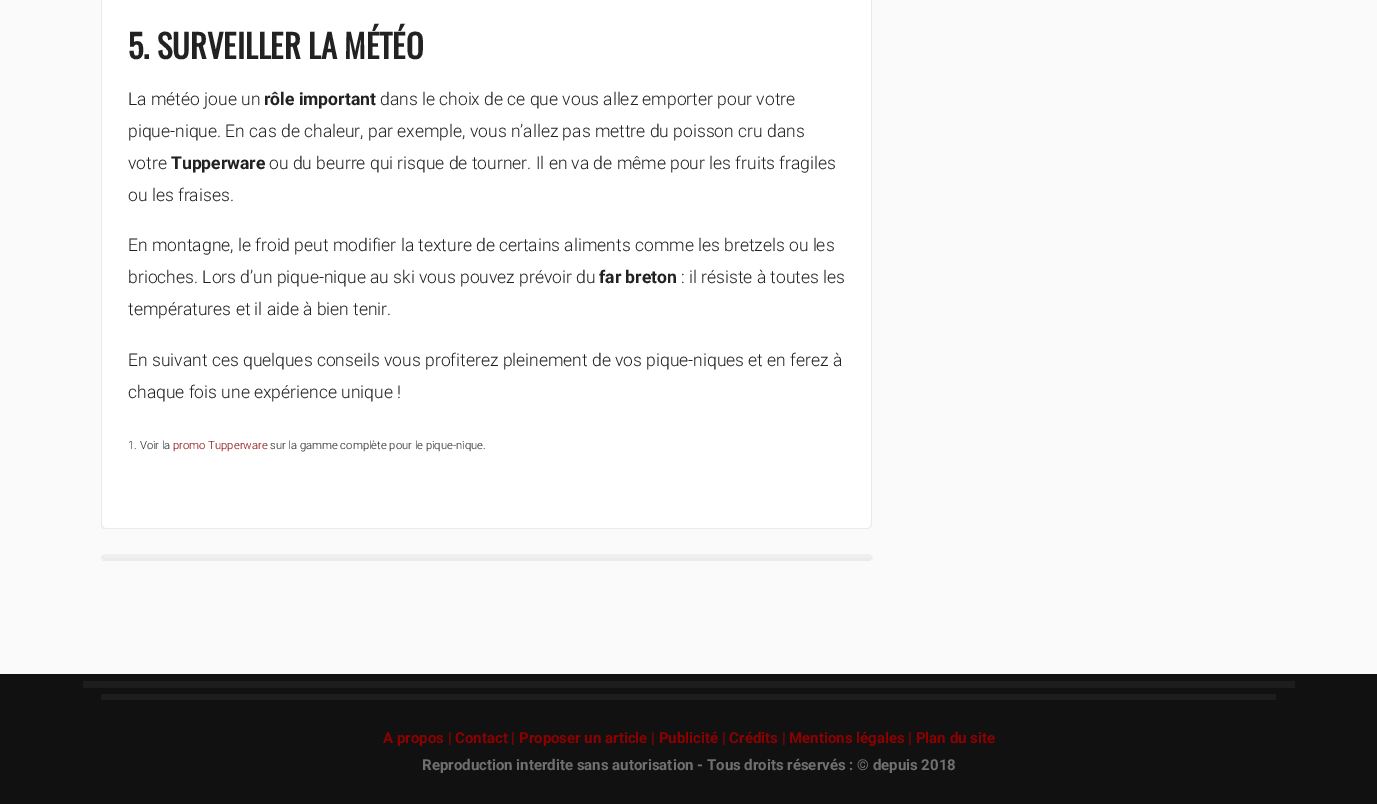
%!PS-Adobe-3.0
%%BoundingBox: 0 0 1377 804
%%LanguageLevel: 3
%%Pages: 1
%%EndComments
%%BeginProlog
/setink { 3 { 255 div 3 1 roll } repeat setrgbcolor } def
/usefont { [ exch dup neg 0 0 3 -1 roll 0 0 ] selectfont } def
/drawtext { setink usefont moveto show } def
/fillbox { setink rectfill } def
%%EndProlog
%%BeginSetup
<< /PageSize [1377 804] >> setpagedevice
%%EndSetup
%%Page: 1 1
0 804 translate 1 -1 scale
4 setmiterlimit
0 0 1377 804 250 250 250 fillbox
255 255 255 setink
106 -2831 moveto 871 -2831 lineto 871 524 lineto 871 526 870 528 868 528 curveto 106 528 lineto 104 528 102 526 102 524 curveto 102 -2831 lineto closepath fill
234 234 234 setink
872 -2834 moveto 872 524 lineto 871 527 lineto 870 527 lineto 871 524 lineto 871 -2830 lineto closepath fill
104 529 moveto 102 528 lineto 103 527 lineto 104 528 105 528 106 528 curveto 868 528 lineto 869 528 870 527 870 527 curveto 871 527 lineto 869 529 lineto closepath fill
101 -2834 moveto 102 -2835 lineto 103 -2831 lineto 102 -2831 lineto 102 524 lineto 103 527 lineto 102 528 lineto 101 526 lineto closepath fill
(5. SURVEILLER LA MÉTÉO) 128 59 /Oswald-Bold 32.5 34 34 34 drawtext
(La météo joue un) 128 105 /Roboto-Light 17.5 34 34 34 drawtext
(rôle important) 264 105 /Roboto-Bold 17.5 34 34 34 drawtext
(dans le choix de ce que vous allez emporter pour votre) 380 105 /Roboto-Light 17.5 34 34 34 drawtext
(pique-nique. En cas de chaleur, par exemple, vous n’allez pas mettre du poisson cru dans) 128 137 /Roboto-Light 17.5 34 34 34 drawtext
(votre) 128 169 /Roboto-Light 17.5 34 34 34 drawtext
(Tupperware) 171 169 /Roboto-Bold 17.5 34 34 34 drawtext
(ou du beurre qui risque de tourner. Il en va de même pour les fruits fragiles) 269 169 /Roboto-Light 17.5 34 34 34 drawtext
(ou les fraises.) 128 201 /Roboto-Light 17.5 34 34 34 drawtext
(En montagne, le froid peut modifier la texture de certains aliments comme les bretzels ou les) 128 251 /Roboto-Light 17.5 34 34 34 drawtext
(brioches. Lors d’un pique-nique au ski vous pouvez prévoir du) 128 283 /Roboto-Light 17.5 34 34 34 drawtext
(far breton) 599 283 /Roboto-Bold 17.5 34 34 34 drawtext
(: il résiste à toutes les) 681 283 /Roboto-Light 17.5 34 34 34 drawtext
(températures et il aide à bien tenir.) 128 315 /Roboto-Light 17.5 34 34 34 drawtext
(En suivant ces quelques conseils vous profiterez pleinement de vos pique-niques et en ferez à) 128 366 /Roboto-Light 17.5 34 34 34 drawtext
(chaque fois une expérience unique !) 128 398 /Roboto-Light 17.5 34 34 34 drawtext
(1. Voir la) 128 449 /Roboto-Light 11.25 34 34 34 drawtext
(promo Tupperware) 173 449 /Roboto-Light 11.25 139 1 1 drawtext
(sur la gamme complète pour le pique-nique.) 270 449 /Roboto-Light 11.25 34 34 34 drawtext
239 239 239 setink
105 554 moveto 869 554 lineto 872 556 lineto 872 558 lineto 102 558 lineto 102 556 lineto 102 555 103 554 105 554 curveto closepath fill
234 234 234 setink
872 556 moveto 873 557.5 872.5 559 871.5 560 curveto 871 560 lineto 871 558 lineto 870.5 559 lineto 869 557.5 lineto 872 557.5 lineto closepath fill
105 560 moveto 103 559 lineto 105 558 lineto 869 558 lineto 870 559 lineto 869 560 lineto 871 560 lineto 869 561 lineto 105 561 lineto 104 561 103 561 102 560 curveto closepath fill
101 557.5 moveto 101.5 556 lineto 102 557.5 lineto 105 557.5 lineto 103 559.5 lineto 102.5 559 102 558.5 102 558 curveto 102 559.5 lineto closepath 102.5 560 moveto 102 560 lineto 102 559.5 lineto closepath 102.5 560 moveto 102.5 560 lineto closepath eofill
0 674 1377 130 17 17 17 fillbox
83 681 1212 7 29 29 29 fillbox
101 694 1175 6 29 29 29 fillbox
(A propos | Contact | Proposer un article | Publicité | Crédits | Mentions légales | Plan du site) 383 743 /Roboto-Bold 15 139 1 1 drawtext
(Reproduction interdite sans autorisation - Tous droits réservés : © depuis 2018) 422 770 /Roboto-Bold 15 112 112 112 drawtext
showpage
%%EOF
